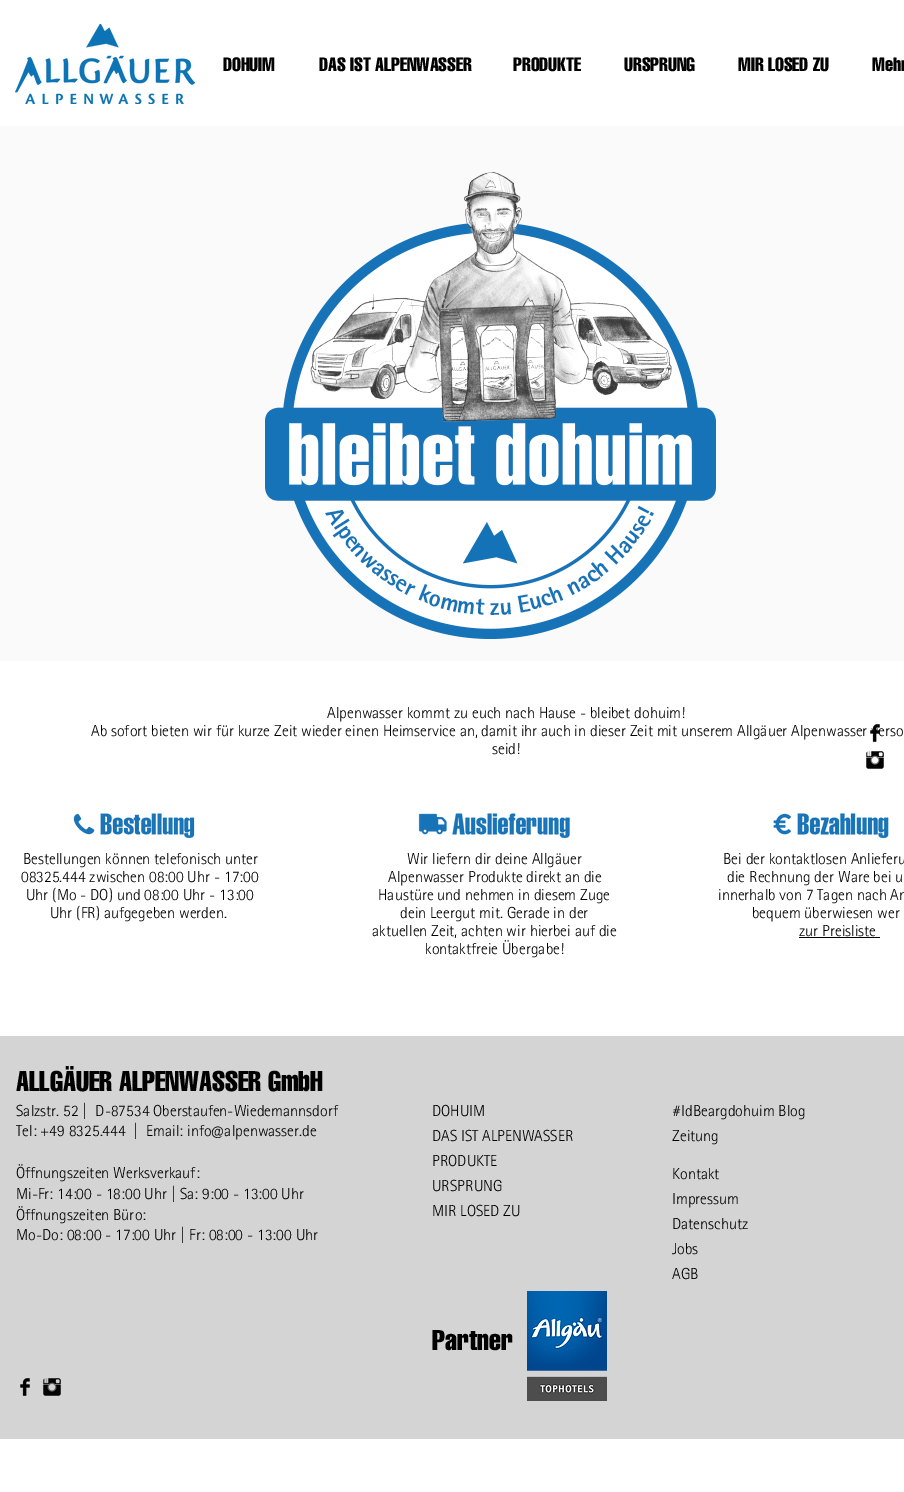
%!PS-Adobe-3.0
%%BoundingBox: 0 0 904 1492
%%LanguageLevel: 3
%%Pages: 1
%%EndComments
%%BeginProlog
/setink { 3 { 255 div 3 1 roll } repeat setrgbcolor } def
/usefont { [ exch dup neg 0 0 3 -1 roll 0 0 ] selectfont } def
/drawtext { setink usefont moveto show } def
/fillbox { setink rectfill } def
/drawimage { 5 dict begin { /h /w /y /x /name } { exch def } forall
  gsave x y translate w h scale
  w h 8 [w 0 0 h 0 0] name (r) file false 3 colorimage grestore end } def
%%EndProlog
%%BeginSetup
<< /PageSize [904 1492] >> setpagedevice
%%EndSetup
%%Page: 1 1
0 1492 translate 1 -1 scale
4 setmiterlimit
0 0 904 1492 255 255 255 fillbox
(assets/img1.rgb) 15 24 180 80 drawimage
(DOHUIM) 223 71 /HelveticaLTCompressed-Regular 19 0 0 0 drawtext
(DAS IST ALPENWASSER) 319 71 /HelveticaLTCompressed-Regular 19 0 0 0 drawtext
(PRODUKTE) 513 71 /HelveticaLTCompressed-Regular 19 0 0 0 drawtext
(URSPRUNG) 624 71 /HelveticaLTCompressed-Regular 19 0 0 0 drawtext
(MIR LOSED ZU) 738 71 /HelveticaLTCompressed-Regular 19 0 0 0 drawtext
(Mehr) 872 71 /HelveticaLTCompressed-Regular 19 0 0 0 drawtext
0 126 904 535 250 250 250 fillbox
(assets/img2.rgb) 265 171 451 468 drawimage
(Alpenwasser kommt zu euch nach Hause - bleibet dohuim!) 327 718 /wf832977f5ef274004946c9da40-Light 16 0 0 0 drawtext
(Ab sofort bieten wir für kurze Zeit wieder einen Heimservice an, damit ihr auch in dieser Zeit mit unserem Allgäuer Alpenwasser verso) 91 736 /wf832977f5ef274004946c9da40-Light 16 0 0 0 drawtext
(seid!) 492 754 /wf832977f5ef274004946c9da40-Light 16 0 0 0 drawtext
(assets/img3.rgb) 73 813 122 25 drawimage
(assets/img4.rgb) 418 813 152 26 drawimage
(assets/img5.rgb) 773 813 116 26 drawimage
(Bestellungen können telefonisch unter) 23 864 /wf832977f5ef274004946c9da40-Light 16 0 0 0 drawtext
(08325.444 zwischen 08:00 Uhr - 17:00) 21 882 /wf832977f5ef274004946c9da40-Light 16 0 0 0 drawtext
(Uhr \(Mo - DO\) und 08:00 Uhr - 13:00) 26 900 /wf832977f5ef274004946c9da40-Light 16 0 0 0 drawtext
(Uhr \(FR\) aufgegeben werden.) 50 918 /wf832977f5ef274004946c9da40-Light 16 0 0 0 drawtext
(Wir liefern dir deine Allgäuer) 407 864 /wf832977f5ef274004946c9da40-Light 16 0 0 0 drawtext
(Alpenwasser Produkte direkt an die) 388 882 /wf832977f5ef274004946c9da40-Light 16 0 0 0 drawtext
(Haustüre und nehmen in diesem Zuge) 378 900 /wf832977f5ef274004946c9da40-Light 16 0 0 0 drawtext
(dein Leergut mit. Gerade in der) 400 918 /wf832977f5ef274004946c9da40-Light 16 0 0 0 drawtext
(aktuellen Zeit, achten wir hierbei auf die) 372 936 /wf832977f5ef274004946c9da40-Light 16 0 0 0 drawtext
(kontaktfreie Übergabe!) 425 954 /wf832977f5ef274004946c9da40-Light 16 0 0 0 drawtext
(Bei der kontaktlosen Anlieferu) 723 864 /wf832977f5ef274004946c9da40-Light 16 0 0 0 drawtext
(die Rechnung der Ware bei u) 727 882 /wf832977f5ef274004946c9da40-Light 16 0 0 0 drawtext
(innerhalb von 7 Tagen nach An) 718 900 /wf832977f5ef274004946c9da40-Light 16 0 0 0 drawtext
(bequem überwiesen wer) 752 918 /wf832977f5ef274004946c9da40-Light 16 0 0 0 drawtext
(zur Preisliste) 799 936 /wf832977f5ef274004946c9da40-Light 16 0 0 0 drawtext
799 937 81 1 0 0 0 fillbox
(assets/img6.rgb) 870 724 10 18 drawimage
(assets/img7.rgb) 866 751 18 18 drawimage
0 1036 904 403 212 212 212 fillbox
(ALLGÄUER ALPENWASSER GmbH) 16 1091 /HelveticaLTCompressed-Regular 28 0 0 0 drawtext
(Salzstr. 52 |  D-87534 Oberstaufen-Wiedemannsdorf) 16 1116 /wf832977f5ef274004946c9da40-Light 16 0 0 0 drawtext
(Tel: +49 8325.444  |  Email: info@alpenwasser.de) 16 1136 /wf832977f5ef274004946c9da40-Light 16 0 0 0 drawtext
(Öffnungszeiten Werksverkauf:) 16 1178 /wf832977f5ef274004946c9da40-Light 16 0 0 0 drawtext
(Mi-Fr: 14:00 - 18:00 Uhr | Sa: 9:00 - 13:00 Uhr) 16 1199 /wf832977f5ef274004946c9da40-Light 16 0 0 0 drawtext
(Öffnungszeiten Büro:) 16 1220 /wf832977f5ef274004946c9da40-Light 16 0 0 0 drawtext
(Mo-Do: 08:00 - 17:00 Uhr | Fr: 08:00 - 13:00 Uhr) 16 1240 /wf832977f5ef274004946c9da40-Light 16 0 0 0 drawtext
(DOHUIM) 432 1116 /wf832977f5ef274004946c9da40-Light 16 0 0 0 drawtext
(DAS IST ALPENWASSER) 432 1141 /wf832977f5ef274004946c9da40-Light 16 0 0 0 drawtext
(PRODUKTE) 432 1166 /wf832977f5ef274004946c9da40-Light 16 0 0 0 drawtext
(URSPRUNG) 432 1191 /wf832977f5ef274004946c9da40-Light 16 0 0 0 drawtext
(MIR LOSED ZU) 432 1216 /wf832977f5ef274004946c9da40-Light 16 0 0 0 drawtext
(#IdBeargdohuim Blog) 672 1116 /wf832977f5ef274004946c9da40-Light 16 0 0 0 drawtext
(Zeitung) 672 1141 /wf832977f5ef274004946c9da40-Light 16 0 0 0 drawtext
(Kontakt) 672 1179 /wf832977f5ef274004946c9da40-Light 16 0 0 0 drawtext
(Impressum) 672 1204 /wf832977f5ef274004946c9da40-Light 16 0 0 0 drawtext
(Datenschutz) 672 1229 /wf832977f5ef274004946c9da40-Light 16 0 0 0 drawtext
(Jobs) 672 1254 /wf832977f5ef274004946c9da40-Light 16 0 0 0 drawtext
(AGB) 672 1279 /wf832977f5ef274004946c9da40-Light 16 0 0 0 drawtext
(Partner) 432 1350 /HelveticaLTCompressed-Regular 28 0 0 0 drawtext
(assets/img8.rgb) 527 1291 80 110 drawimage
(assets/img9.rgb) 20 1378 10 18 drawimage
(assets/img10.rgb) 43 1378 18 18 drawimage
showpage
%%EOF
